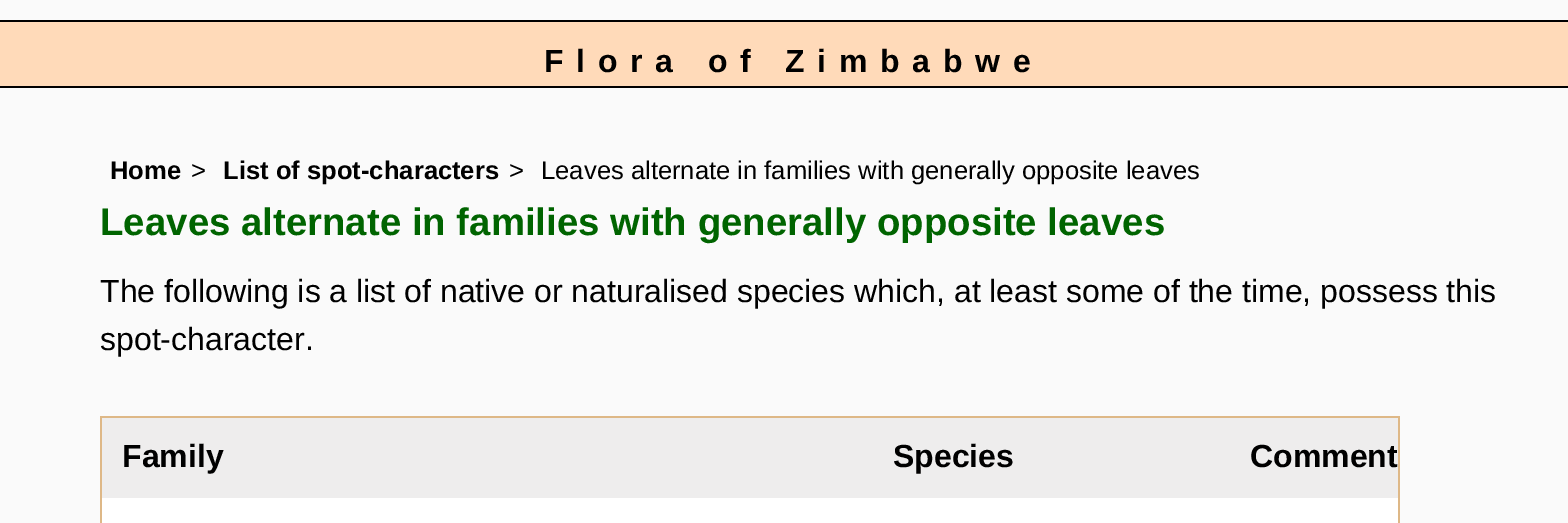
%!PS-Adobe-3.0
%%BoundingBox: 0 0 1568 523
%%LanguageLevel: 3
%%Pages: 1
%%EndComments
%%BeginProlog
/setink { 3 { 255 div 3 1 roll } repeat setrgbcolor } def
/usefont { [ exch dup neg 0 0 3 -1 roll 0 0 ] selectfont } def
/drawtext { setink usefont moveto show } def
/fillbox { setink rectfill } def
%%EndProlog
%%BeginSetup
<< /PageSize [1568 523] >> setpagedevice
%%EndSetup
%%Page: 1 1
0 523 translate 1 -1 scale
4 setmiterlimit
0 0 1568 523 250 250 250 fillbox
0 22 1568 64 255 218 185 fillbox
0 20 1568 2 0 0 0 fillbox
0 86 1568 2 0 0 0 fillbox
/LiberationSans-Bold 32 usefont
544 72 moveto 12.75 0 (Flora of Zimbabwe) ashow
(Home) 110 179 /LiberationSans-Bold 25.6 0 0 0 drawtext
(>) 191 179 /LiberationSans-Regular 25.6 0 0 0 drawtext
(List of spot-characters) 223 179 /LiberationSans-Bold 25.6 0 0 0 drawtext
(>) 509 179 /LiberationSans-Regular 25.6 0 0 0 drawtext
(Leaves alternate in families with generally opposite leaves) 541 179 /LiberationSans-Regular 25.6 0 0 0 drawtext
(Leaves alternate in families with generally opposite leaves) 100 235 /LiberationSans-Bold 38.4 0 100 0 drawtext
(The following is a list of native or naturalised species which, at least some of the time, possess this) 100 302 /LiberationSans-Regular 32 0 0 0 drawtext
(spot-character.) 100 350 /LiberationSans-Regular 32 0 0 0 drawtext
100 416 1300 2 222 184 135 fillbox
1398 416 2 107 222 184 135 fillbox
100 416 2 107 222 184 135 fillbox
102 418 1296 80 238 237 237 fillbox
(Family) 122 467 /LiberationSans-Bold 32 0 0 0 drawtext
(Species) 893 467 /LiberationSans-Bold 32 0 0 0 drawtext
(Comment) 1250 467 /LiberationSans-Bold 32 0 0 0 drawtext
102 498 1296 25 255 255 255 fillbox
showpage
%%EOF
